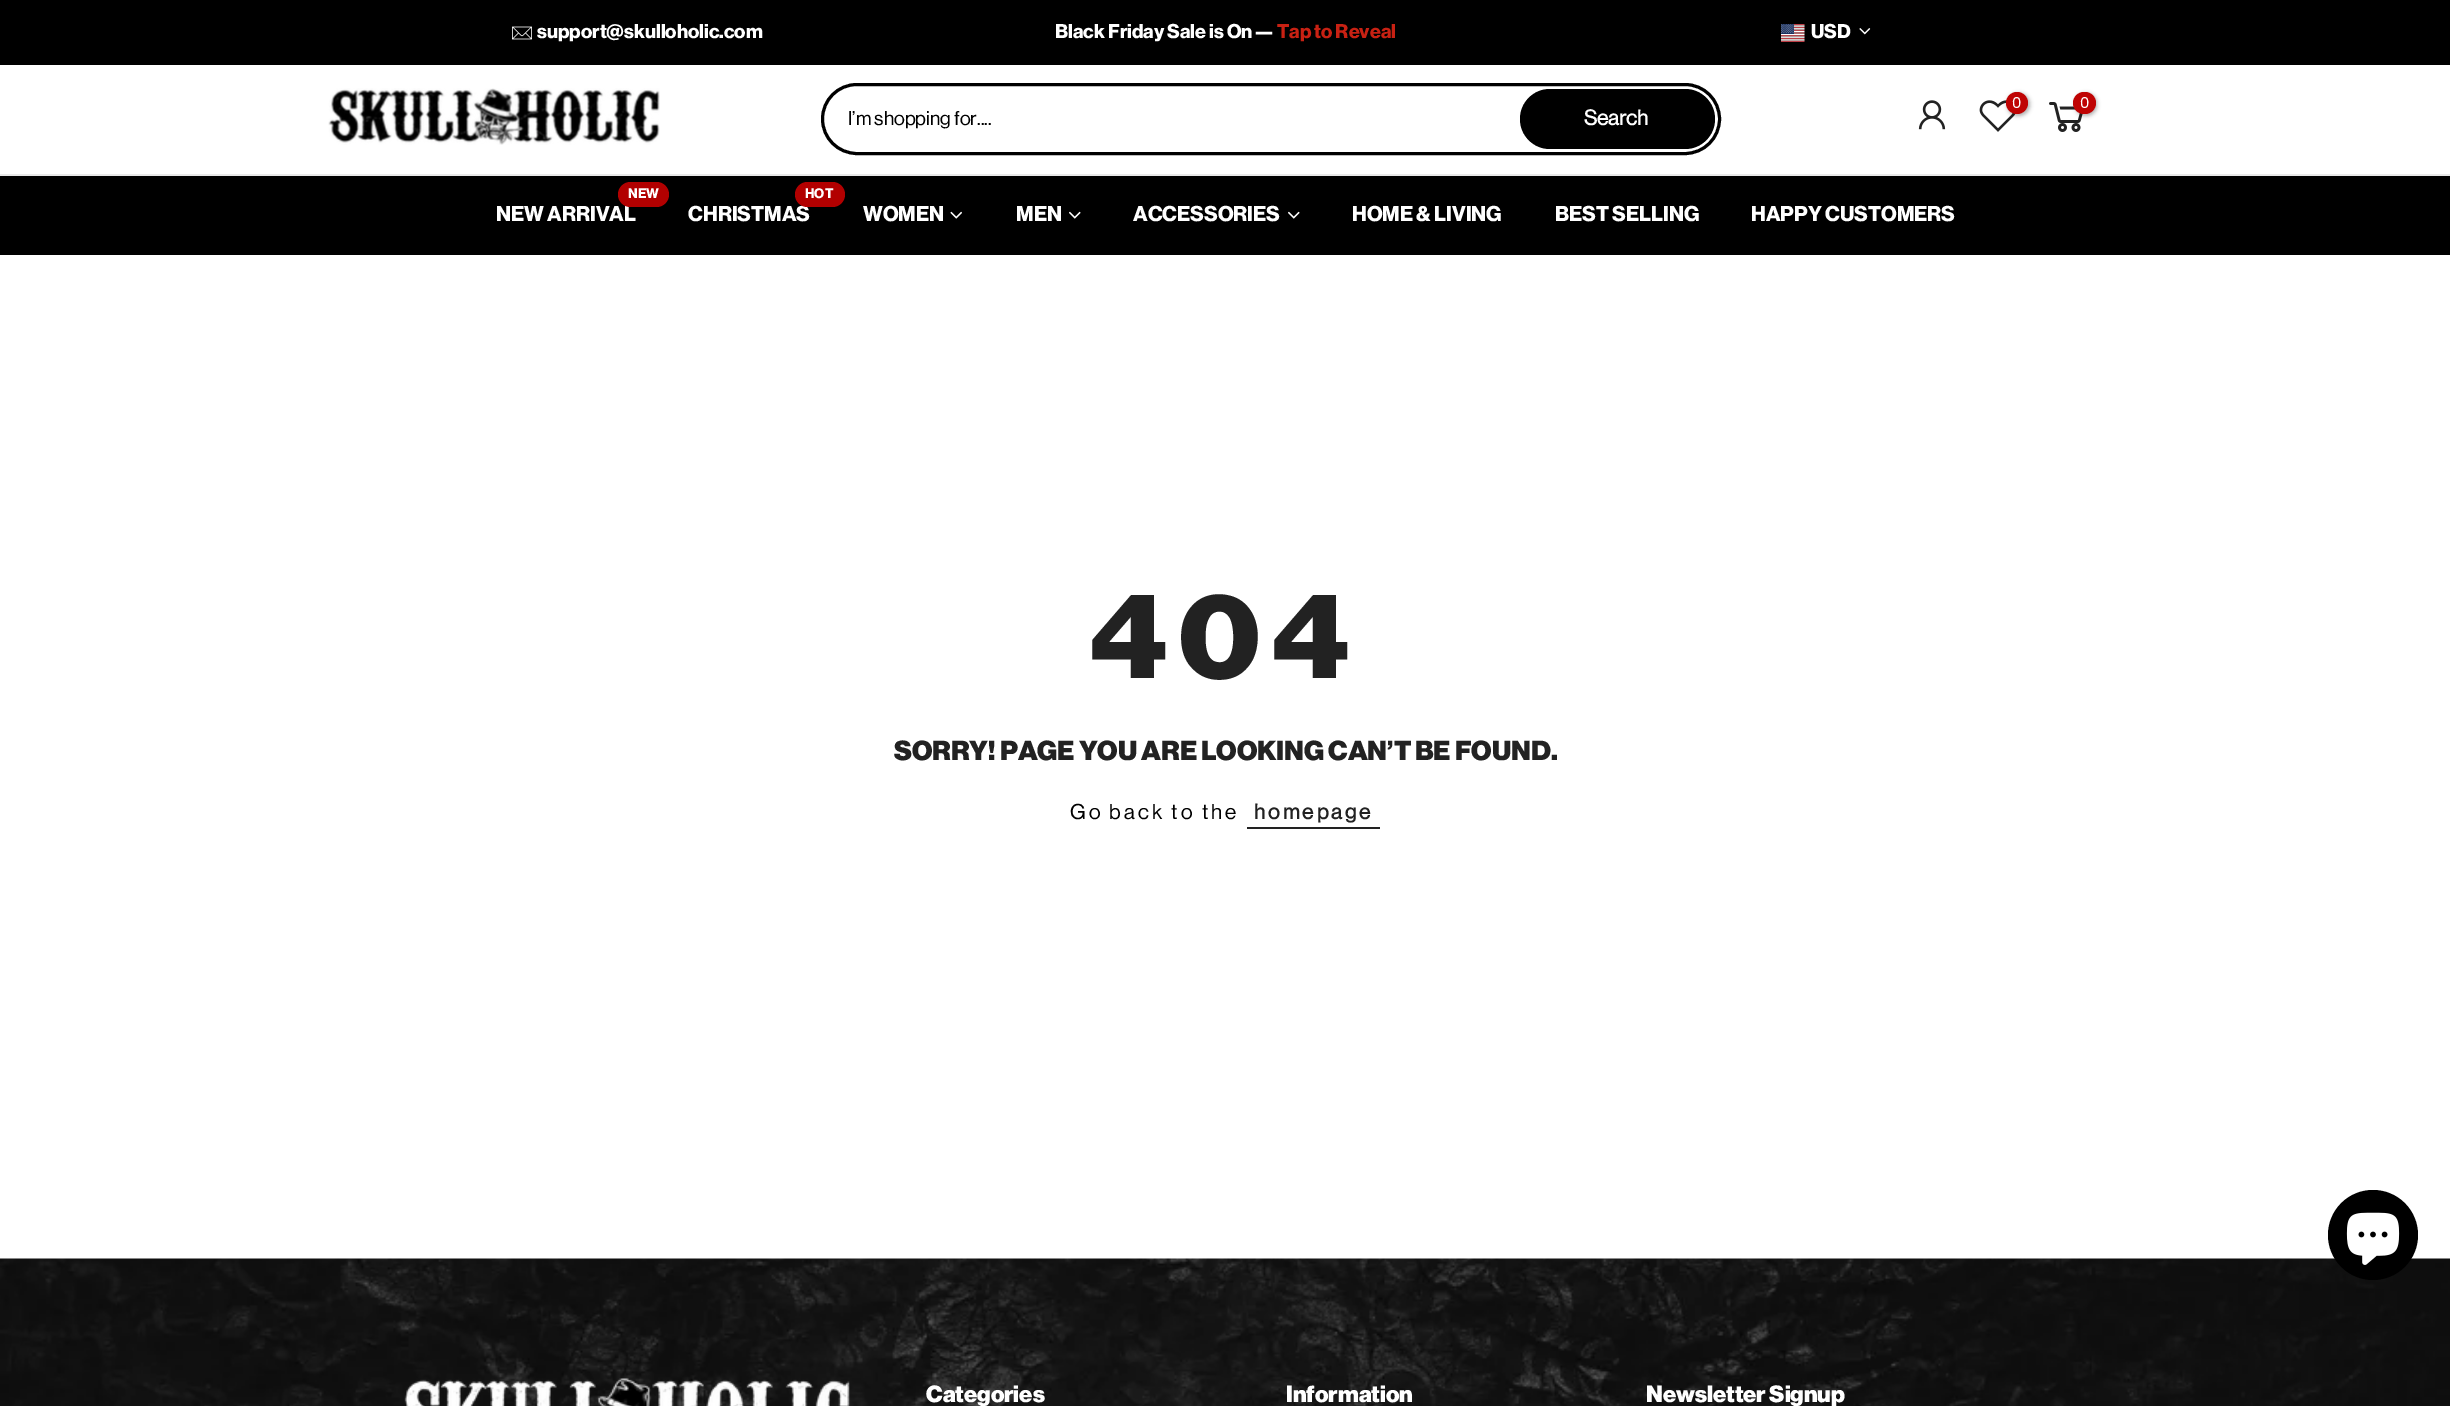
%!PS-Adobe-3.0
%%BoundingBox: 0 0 2450 1406
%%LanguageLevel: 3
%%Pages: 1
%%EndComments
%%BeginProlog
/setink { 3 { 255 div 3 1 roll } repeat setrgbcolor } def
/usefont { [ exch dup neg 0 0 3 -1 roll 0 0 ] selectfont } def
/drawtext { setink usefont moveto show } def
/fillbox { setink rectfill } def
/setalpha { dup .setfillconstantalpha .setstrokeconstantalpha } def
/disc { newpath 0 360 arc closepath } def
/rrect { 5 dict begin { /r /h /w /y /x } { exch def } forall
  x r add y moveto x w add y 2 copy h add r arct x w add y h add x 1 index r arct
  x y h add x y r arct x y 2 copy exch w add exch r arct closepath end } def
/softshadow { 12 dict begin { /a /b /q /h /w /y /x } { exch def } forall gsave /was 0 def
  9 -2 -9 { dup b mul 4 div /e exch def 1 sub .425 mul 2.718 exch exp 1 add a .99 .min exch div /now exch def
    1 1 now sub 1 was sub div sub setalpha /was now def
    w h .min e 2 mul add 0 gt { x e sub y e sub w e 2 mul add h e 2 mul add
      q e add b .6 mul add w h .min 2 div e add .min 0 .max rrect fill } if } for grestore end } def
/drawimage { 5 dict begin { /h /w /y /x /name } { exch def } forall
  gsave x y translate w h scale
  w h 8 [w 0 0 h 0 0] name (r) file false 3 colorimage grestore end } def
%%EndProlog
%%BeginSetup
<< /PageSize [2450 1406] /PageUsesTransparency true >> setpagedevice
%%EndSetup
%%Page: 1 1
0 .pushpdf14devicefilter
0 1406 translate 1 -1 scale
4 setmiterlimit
0 0 2450 1406 255 255 255 fillbox
0 0 2450 65 0 0 0 fillbox
(assets/img1.rgb) 512 26 20 14 drawimage
(support@skulloholic.com) 537 38 /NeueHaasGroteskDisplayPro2-Bold 19.5 255 255 255 drawtext
(Black Friday Sale is On —) 1055 38 /NeueHaasGroteskDisplayPro2-Bold 19.5 255 255 255 drawtext
(Tap to Reveal) 1277 38 /NeueHaasGroteskDisplayPro2-Bold 19.5 200 33 19 drawtext
(assets/img2.rgb) 1781 24 24 18 drawimage
(USD) 1811 38 /NeueHaasGroteskDisplayPro2-Bold 19.5 255 255 255 drawtext
(assets/img3.rgb) 1859 28 12 7 drawimage
(assets/img4.rgb) 328 88 332 57 drawimage
(assets/img5.rgb) 1918 100 28 30 drawimage
(assets/img6.rgb) 1979 100 37 32 drawimage
0 0 0 setink
2007 93 23 23 11.5 2 0.3 softshadow
191 3 3 setink
2017 103 11 disc fill
(0) 2012 108 /Poppins-Regular 15 255 255 255 drawtext
(assets/img7.rgb) 2049 102 34 30 drawimage
0 0 0 setink
2075 93 22 23 11 2 0.3 softshadow
191 3 3 setink
2073 92 23 22 11 rrect fill
(0) 2080 108 /Poppins-Regular 15 255 255 255 drawtext
0 0 0 setink
3 setlinewidth
822.5 84.5 897 69 34.5 rrect stroke
(I’m shopping for....) 848 125 /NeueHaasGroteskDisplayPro-Regular 19.5 0 0 0 drawtext
1520 89 195 60 30 rrect fill
(Search) 1584 125 /NeueHaasGroteskDisplayPro-Bold 21 255 255 255 drawtext
0 176 2450 79 0 0 0 fillbox
0 174 2450 2 233 233 233 fillbox
(NEW ARRIVAL) 496 221 /NeueHaasGroteskDisplayPro2-Bold 21 255 255 255 drawtext
178 0 0 setink
618 182 51 25 12.5 rrect fill
(NEW) 628 198 /NeueHaasGroteskDisplayPro2-Bold 13.5 255 255 255 drawtext
(CHRISTMAS) 688 221 /NeueHaasGroteskDisplayPro2-Bold 21 255 255 255 drawtext
178 0 0 setink
795 182 50 25 12.5 rrect fill
(HOT) 805 198 /NeueHaasGroteskDisplayPro2-Bold 13.5 255 255 255 drawtext
(WOMEN) 863 221 /NeueHaasGroteskDisplayPro2-Bold 21 255 255 255 drawtext
(assets/img8.rgb) 950 211 12 8 drawimage
(MEN) 1016 221 /NeueHaasGroteskDisplayPro2-Bold 21 255 255 255 drawtext
(assets/img9.rgb) 1069 211 12 8 drawimage
(ACCESSORIES) 1133 221 /NeueHaasGroteskDisplayPro2-Bold 21 255 255 255 drawtext
(assets/img9.rgb) 1288 211 12 8 drawimage
(HOME & LIVING) 1352 221 /NeueHaasGroteskDisplayPro2-Bold 21 255 255 255 drawtext
(BEST SELLING) 1555 221 /NeueHaasGroteskDisplayPro2-Bold 21 255 255 255 drawtext
(HAPPY CUSTOMERS) 1751 221 /NeueHaasGroteskDisplayPro2-Bold 21 255 255 255 drawtext
/NeueHaasGroteskDisplayPro-Black 120 usefont
34 34 34 setink
1090 678 moveto 12 0 (404) ashow
(SORRY! PAGE YOU ARE LOOKING CAN’T BE FOUND.) 894 760 /NeueHaasGroteskDisplayPro-Black 27 34 34 34 drawtext
/NeueHaasGroteskDisplayPro-Regular 21 usefont
0 0 0 setink
1070 819 moveto 3 0 (Go back to the) ashow
/NeueHaasGroteskDisplayPro-Bold 21 usefont
34 34 34 setink
1254 819 moveto 3 0 (homepage) ashow
1247 827 133 2 34 34 34 fillbox
(assets/img10.rgb) 0 1258 2450 148 drawimage
(assets/img11.rgb) 404 1378 446 28 drawimage
(Categories) 926 1402 /NeueHaasGroteskDisplayPro-Black 23 255 255 255 drawtext
(Information) 1286 1402 /NeueHaasGroteskDisplayPro-Black 23 255 255 255 drawtext
(Newsletter Signup) 1646 1402 /NeueHaasGroteskDisplayPro-Black 23 255 255 255 drawtext
0 0 0 setink
2373 1235 45 disc fill
(assets/img12.rgb) 2346 1212 54 53 drawimage
.poppdf14devicefilter showpage
%%EOF
